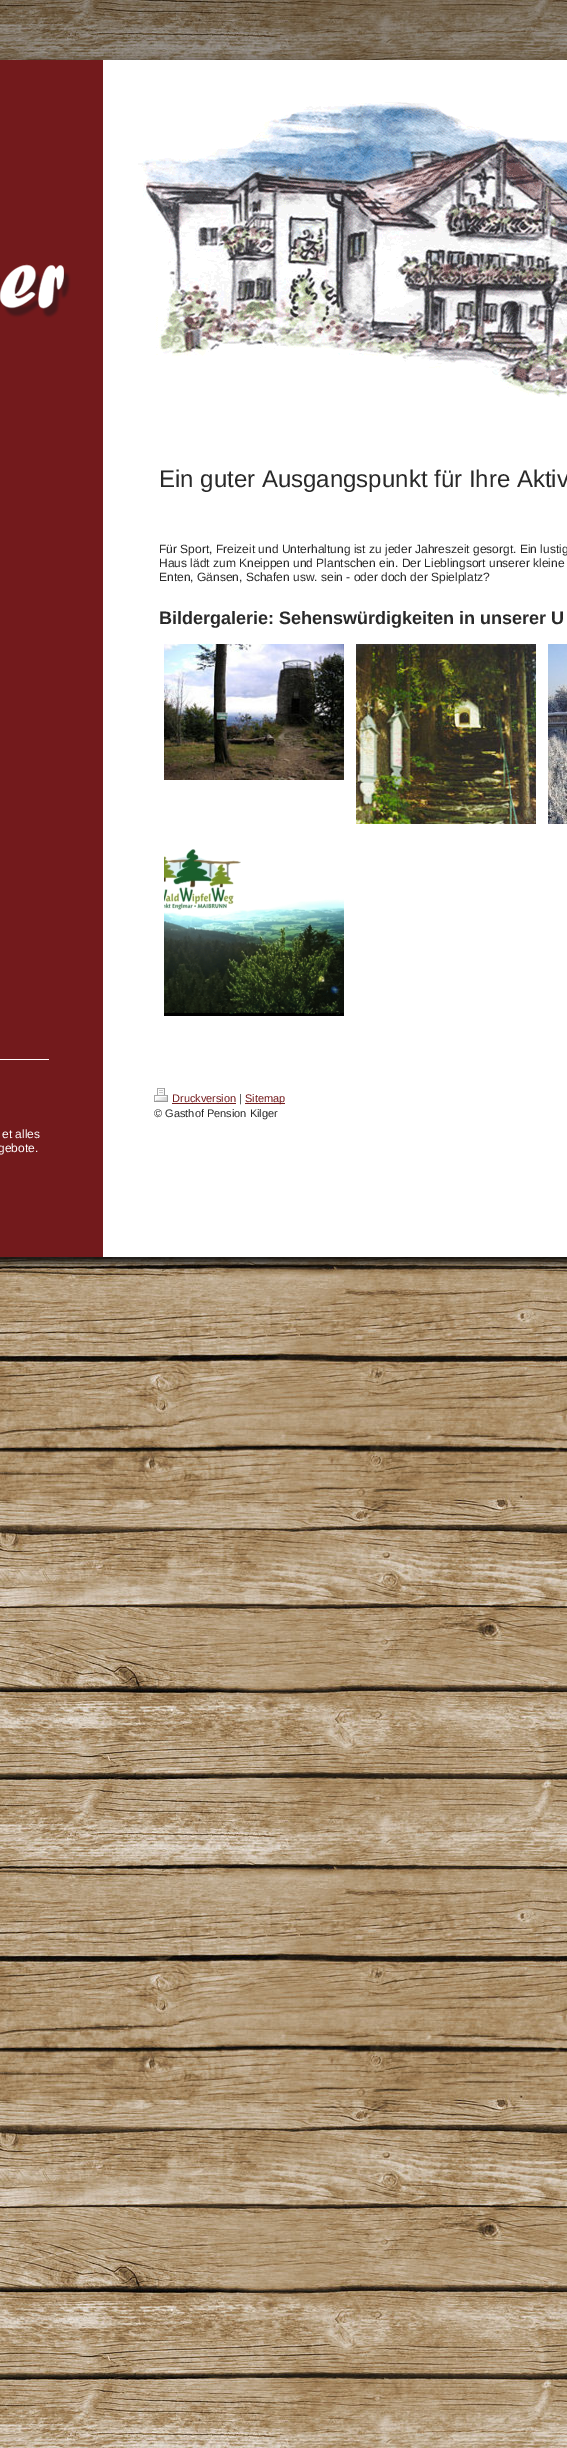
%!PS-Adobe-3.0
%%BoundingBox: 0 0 567 2448
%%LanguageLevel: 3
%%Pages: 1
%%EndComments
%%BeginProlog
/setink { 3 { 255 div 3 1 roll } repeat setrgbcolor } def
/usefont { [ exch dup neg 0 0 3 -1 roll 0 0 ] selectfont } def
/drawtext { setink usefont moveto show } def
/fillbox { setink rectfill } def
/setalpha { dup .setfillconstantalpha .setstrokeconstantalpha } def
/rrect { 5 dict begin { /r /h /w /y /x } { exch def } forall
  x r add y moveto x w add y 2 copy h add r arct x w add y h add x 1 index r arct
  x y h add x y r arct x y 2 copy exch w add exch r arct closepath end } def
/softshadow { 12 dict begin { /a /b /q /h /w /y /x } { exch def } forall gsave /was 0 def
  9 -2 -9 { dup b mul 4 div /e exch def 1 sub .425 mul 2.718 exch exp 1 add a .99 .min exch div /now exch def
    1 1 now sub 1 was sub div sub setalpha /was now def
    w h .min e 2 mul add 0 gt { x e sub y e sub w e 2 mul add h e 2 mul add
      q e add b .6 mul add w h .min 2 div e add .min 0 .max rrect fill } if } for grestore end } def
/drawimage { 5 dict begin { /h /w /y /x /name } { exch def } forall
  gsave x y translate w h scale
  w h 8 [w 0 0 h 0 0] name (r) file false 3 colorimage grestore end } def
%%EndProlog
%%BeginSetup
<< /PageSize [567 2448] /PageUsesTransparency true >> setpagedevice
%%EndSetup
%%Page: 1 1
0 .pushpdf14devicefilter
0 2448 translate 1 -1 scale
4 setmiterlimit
0 0 567 2448 255 255 255 fillbox
(assets/img1.rgb) 0 0 567 2448 drawimage
(assets/img2.rgb) 0 0 567 60 drawimage
0 0 0 setink
-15 66 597 1197 0 5 1 softshadow
(assets/img5.rgb) 0 60 567 1197 drawimage
(assets/img3.rgb) 0 264 71 54 drawimage
(assets/img4.rgb) 138 102 429 295 drawimage
(Ein guter Ausgangspunkt für Ihre Aktiv) 159 487 /LiberationSans-Regular 24 41 41 41 drawtext
(Für Sport, Freizeit und Unterhaltung ist zu jeder Jahreszeit gesorgt. Ein lustig) 159 553 /LiberationSans-Regular 12 41 41 41 drawtext
(Haus lädt zum Kneippen und Plantschen ein. Der Lieblingsort unserer kleine) 159 567 /LiberationSans-Regular 12 41 41 41 drawtext
(Enten, Gänsen, Schafen usw. sein - oder doch der Spielplatz?) 159 581 /LiberationSans-Regular 12 41 41 41 drawtext
(Bildergalerie: Sehenswürdigkeiten in unserer U) 159 624 /LiberationSans-Bold 18 41 41 41 drawtext
(assets/img6.rgb) 164 644 180 136 drawimage
(assets/img7.rgb) 356 644 180 180 drawimage
(assets/img8.rgb) 548 644 19 180 drawimage
(assets/img9.rgb) 164 849 180 167 drawimage
(assets/img10.rgb) 154 1088 14 14 drawimage
(Druckversion) 172 1102 /LiberationSans-Regular 11 115 26 28 drawtext
172 1103 64 1 115 26 28 fillbox
(|) 239 1102 /LiberationSans-Regular 11 41 41 41 drawtext
245 1103 40 1 115 26 28 fillbox
(Sitemap) 245 1102 /LiberationSans-Regular 11 115 26 28 drawtext
gsave
154 1088 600 34 rectclip
(© Gasthof Pension Kilger) 154 1117 /LiberationSans-Regular 11 41 41 41 drawtext
grestore
0 1059 49 1 255 255 255 fillbox
(et alles) 2 1138 /LiberationSans-Regular 12 255 255 255 drawtext
(gebote.) -2 1152 /LiberationSans-Regular 12 255 255 255 drawtext
.poppdf14devicefilter showpage
%%EOF
